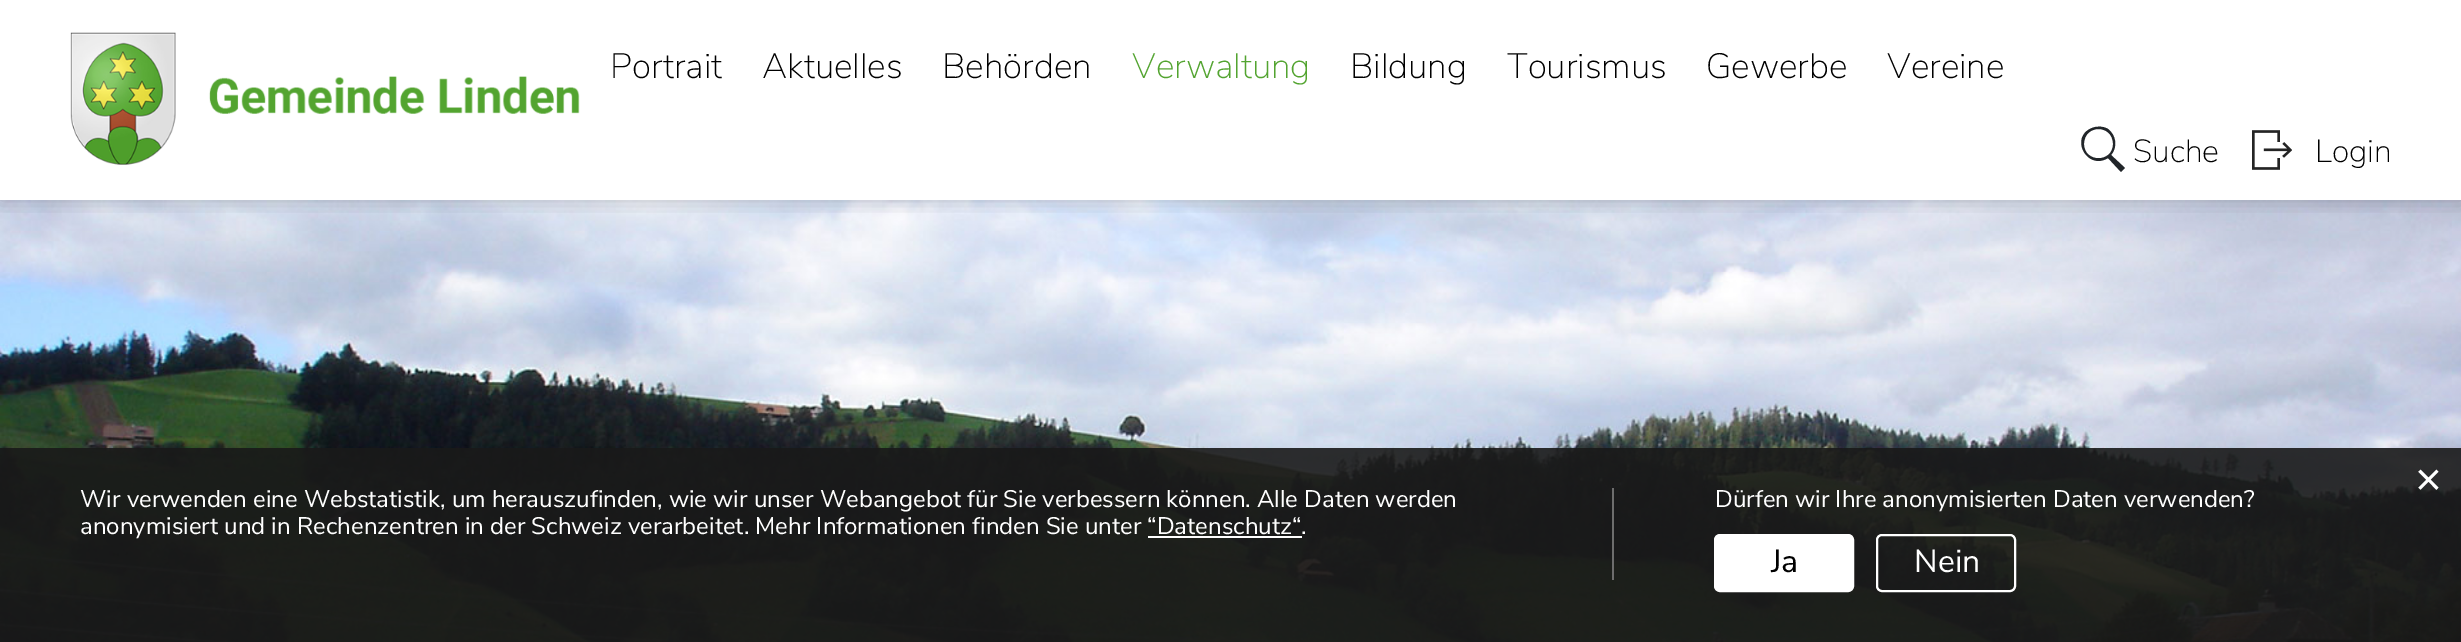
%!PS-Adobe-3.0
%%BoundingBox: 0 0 2461 642
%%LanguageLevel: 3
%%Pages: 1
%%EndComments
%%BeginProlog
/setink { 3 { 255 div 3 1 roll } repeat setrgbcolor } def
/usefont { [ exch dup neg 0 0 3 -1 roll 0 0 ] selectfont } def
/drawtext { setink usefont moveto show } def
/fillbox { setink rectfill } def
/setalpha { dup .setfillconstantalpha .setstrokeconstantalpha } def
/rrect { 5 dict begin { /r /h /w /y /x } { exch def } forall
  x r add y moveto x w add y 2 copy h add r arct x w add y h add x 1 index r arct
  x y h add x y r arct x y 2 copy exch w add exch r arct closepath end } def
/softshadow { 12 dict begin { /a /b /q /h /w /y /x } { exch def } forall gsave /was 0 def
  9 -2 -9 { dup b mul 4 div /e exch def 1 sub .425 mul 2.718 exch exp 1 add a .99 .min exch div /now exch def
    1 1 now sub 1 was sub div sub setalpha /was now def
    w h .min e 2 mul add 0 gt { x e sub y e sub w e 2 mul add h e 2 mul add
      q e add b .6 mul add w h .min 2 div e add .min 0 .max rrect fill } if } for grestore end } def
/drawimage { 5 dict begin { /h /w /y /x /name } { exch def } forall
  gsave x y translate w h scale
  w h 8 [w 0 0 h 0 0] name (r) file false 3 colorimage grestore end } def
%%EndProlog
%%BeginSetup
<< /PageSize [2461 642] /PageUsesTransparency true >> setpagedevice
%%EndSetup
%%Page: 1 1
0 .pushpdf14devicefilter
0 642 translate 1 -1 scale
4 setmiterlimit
0 0 2461 642 255 255 255 fillbox
(assets/img3.rgb) 0 200 2461 442 drawimage
gsave
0 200 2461 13 rectclip
0 0 0 setink
0 0 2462 200 0 10 0.2 softshadow
grestore
(assets/img1.rgb) 70 32 510 133 drawimage
(Portrait) 610 78 /NunitoSans-ExtraLight 35.25 0 0 0 drawtext
(Aktuelles) 762 78 /NunitoSans-ExtraLight 35.25 0 0 0 drawtext
(Behörden) 942 78 /NunitoSans-ExtraLight 35.25 0 0 0 drawtext
(Verwaltung) 1132 78 /NunitoSans-ExtraLight 35.25 83 164 48 drawtext
(Bildung) 1350 78 /NunitoSans-ExtraLight 35.25 0 0 0 drawtext
(Tourismus) 1507 78 /NunitoSans-ExtraLight 35.25 0 0 0 drawtext
(Gewerbe) 1706 78 /NunitoSans-ExtraLight 35.25 0 0 0 drawtext
(Vereine) 1887 78 /NunitoSans-ExtraLight 35.25 0 0 0 drawtext
33 37 41 setink
2125 168 moveto 2111 155 lineto 2118 147 2116 135 2108 129 curveto 2103 126 2097 126 2092 128 curveto 2069 137 2087 171 2108 158 curveto 2121 172 lineto closepath 2084 144 moveto 2084 124 2113 124 2113 144 curveto 2113 163 2084 163 2084 144 curveto closepath fill
(Suche) 2133 162 /NunitoSans-ExtraLight 32 0 0 0 drawtext
(assets/img2.rgb) 2252 130 40 40 drawimage
(Login) 2315 162 /NunitoSans-ExtraLight 32 0 0 0 drawtext
0.9 setalpha
0 448 2461 194 25 25 25 fillbox
1 setalpha
(×) 2415 495 /LiberationSans-Regular 46 255 255 255 drawtext
1612 488 2 92 109 109 109 fillbox
(Wir verwenden eine Webstatistik, um herauszufinden, wie wir unser Webangebot für Sie verbessern können. Alle Daten werden) 80 507 /NunitoSans-Regular 24 255 255 255 drawtext
(anonymisiert und in Rechenzentren in der Schweiz verarbeitet. Mehr Informationen finden Sie unter “Datenschutz“.) 80 534 /NunitoSans-Regular 24 255 255 255 drawtext
1148 536 154 2 255 255 255 fillbox
(Dürfen wir Ihre anonymisierten Daten verwenden?) 1715 507 /NunitoSans-Regular 24 255 255 255 drawtext
1715 535 138 56 5 rrect gsave fill grestore
2 setlinewidth
stroke
(Ja) 1771 572 /NunitoSans-Regular 32 0 0 0 drawtext
255 255 255 setink
1877 535 138 56 5 rrect stroke
(Nein) 1914 572 /NunitoSans-Regular 32 255 255 255 drawtext
.poppdf14devicefilter showpage
%%EOF
